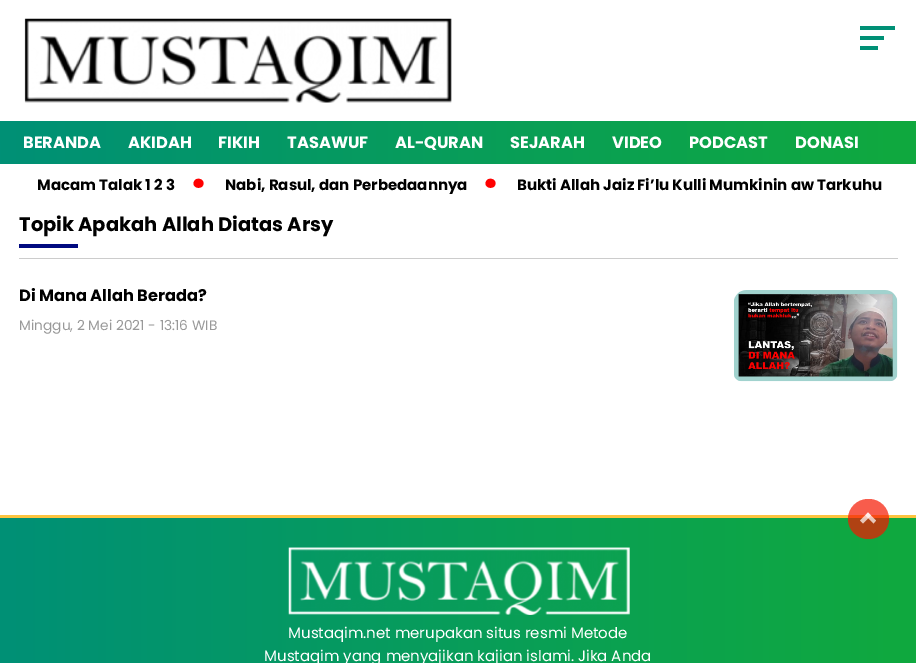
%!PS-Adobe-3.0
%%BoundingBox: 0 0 916 663
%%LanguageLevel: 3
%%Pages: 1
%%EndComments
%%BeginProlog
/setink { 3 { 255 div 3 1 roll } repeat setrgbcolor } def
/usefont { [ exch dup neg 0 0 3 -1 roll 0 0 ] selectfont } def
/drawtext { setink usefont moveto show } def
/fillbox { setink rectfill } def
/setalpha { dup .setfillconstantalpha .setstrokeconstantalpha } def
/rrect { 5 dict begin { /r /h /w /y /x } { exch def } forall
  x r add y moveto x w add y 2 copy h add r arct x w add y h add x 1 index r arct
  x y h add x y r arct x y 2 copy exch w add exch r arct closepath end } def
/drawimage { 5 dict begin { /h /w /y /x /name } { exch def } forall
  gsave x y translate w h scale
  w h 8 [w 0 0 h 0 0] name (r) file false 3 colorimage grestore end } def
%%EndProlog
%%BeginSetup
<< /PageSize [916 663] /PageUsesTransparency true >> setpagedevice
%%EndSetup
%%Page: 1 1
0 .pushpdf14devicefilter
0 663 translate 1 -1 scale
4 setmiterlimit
0 0 916 663 255 255 255 fillbox
(assets/img1.rgb) 24 18 428 85 drawimage
860 26 35 4 0 144 118 fillbox
860 36 24 4 0 144 118 fillbox
860 46 18 4 0 144 118 fillbox
gsave 0 121 moveto 916 121 lineto 916 164 lineto 0 164 lineto closepath clip newpath
<< /ShadingType 2 /ColorSpace /DeviceRGB /Coords [0 143 916 142] /Extend [true true] /Function << /FunctionType 2 /Domain [0 1] /C0 [0 0.565 0.463] /C1 [0.063 0.663 0.243] /N 1 >> >> shfill grestore
(BERANDA) 23 148 /Poppins-Bold 16.25 255 255 255 drawtext
(AKIDAH) 128 148 /Poppins-Bold 16.25 255 255 255 drawtext
(FIKIH) 218 148 /Poppins-Bold 16.25 255 255 255 drawtext
(TASAWUF) 287 148 /Poppins-Bold 16.25 255 255 255 drawtext
(AL-QURAN) 395 148 /Poppins-Bold 16.25 255 255 255 drawtext
(SEJARAH) 510 148 /Poppins-Bold 16.25 255 255 255 drawtext
(VIDEO) 612 148 /Poppins-Bold 16.25 255 255 255 drawtext
(PODCAST) 689 148 /Poppins-Bold 16.25 255 255 255 drawtext
(DONASI) 795 148 /Poppins-Bold 16.25 255 255 255 drawtext
(Macam Talak 1 2 3) 37 190 /Poppins-Bold 15 0 0 0 drawtext
(·) 191 199 /Poppins-Bold 50 255 0 0 drawtext
(Nabi, Rasul, dan Perbedaannya) 225 190 /Poppins-Bold 15 0 0 0 drawtext
(·) 483 199 /Poppins-Bold 50 255 0 0 drawtext
(Bukti Allah Jaiz Fi’lu Kulli Mumkinin aw Tarkuhu) 517 190 /Poppins-Bold 15 0 0 0 drawtext
19 258 879 1 204 204 204 fillbox
(Topik Apakah Allah Diatas Arsy) 19 231 /Poppins-Bold 19.5 0 0 0 drawtext
19 244 59 4 1 10 128 fillbox
(Di Mana Allah Berada?) 19 301 /Poppins-Bold 16.25 0 0 0 drawtext
(assets/img2.rgb) 734 290 164 92 drawimage
(Minggu, 2 Mei 2021 - 13:16 WIB) 19 330 /Poppins-Regular 13.75 153 153 153 drawtext
gsave 0 518 moveto 916 518 lineto 916 663 lineto 0 663 lineto closepath clip newpath
<< /ShadingType 2 /ColorSpace /DeviceRGB /Coords [0 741 916 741] /Extend [true true] /Function << /FunctionType 2 /Domain [0 1] /C0 [0 0.565 0.463] /C1 [0.063 0.663 0.243] /N 1 >> >> shfill grestore
0 515 916 3 252 196 63 fillbox
0.7 setalpha
245 23 0 setink
848 499 41 40 20 rrect fill
255 255 255 setink
863 523.5 moveto 860 520.5 lineto 868 512.5 lineto 871 515.5 lineto closepath fill
873.5 523.5 moveto 865.5 515.5 lineto 868 512.5 lineto 876 520.5 lineto closepath fill
1 setalpha
(assets/img3.rgb) 288 547 342 68 drawimage
(Mustaqim.net merupakan situs resmi Metode) 288 638 /Poppins-Regular 15 255 255 255 drawtext
(Mustaqim yang menyajikan kajian islami. Jika Anda) 264 661 /Poppins-Regular 15 255 255 255 drawtext
.poppdf14devicefilter showpage
%%EOF
